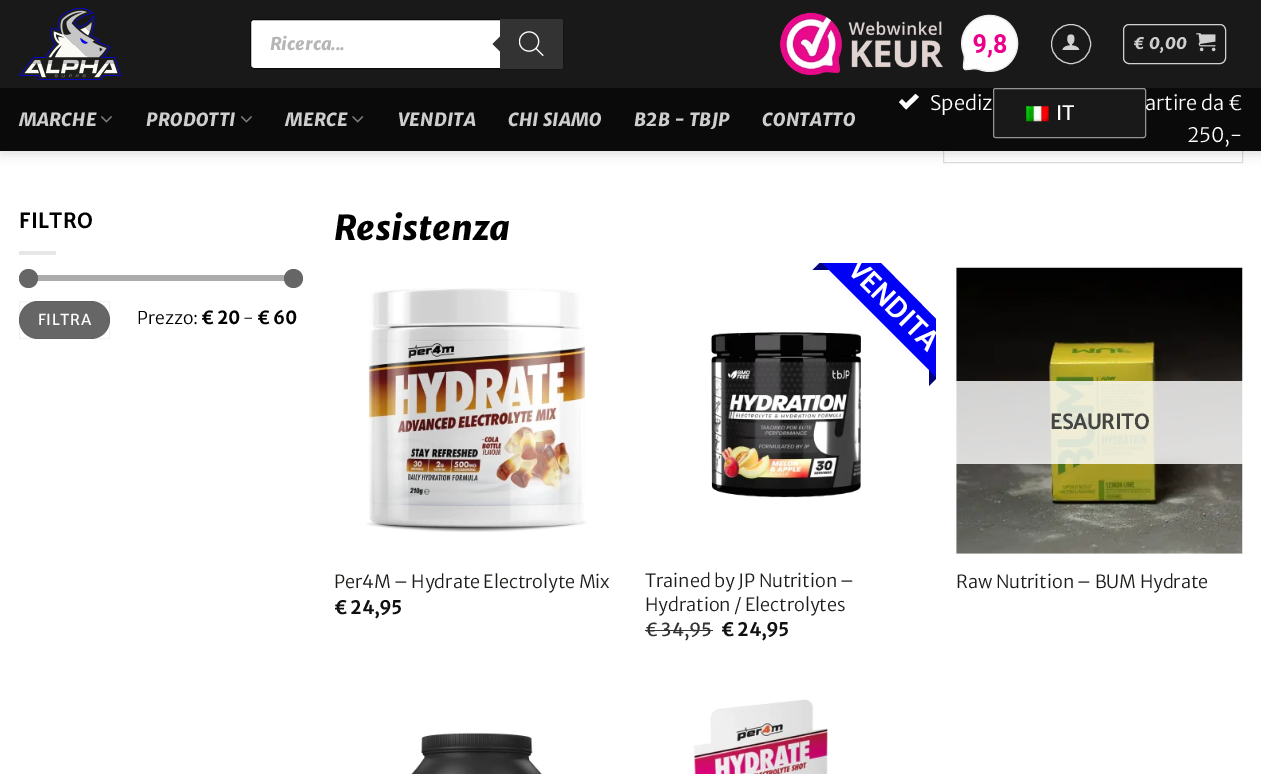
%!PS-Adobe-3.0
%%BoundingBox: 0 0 1261 774
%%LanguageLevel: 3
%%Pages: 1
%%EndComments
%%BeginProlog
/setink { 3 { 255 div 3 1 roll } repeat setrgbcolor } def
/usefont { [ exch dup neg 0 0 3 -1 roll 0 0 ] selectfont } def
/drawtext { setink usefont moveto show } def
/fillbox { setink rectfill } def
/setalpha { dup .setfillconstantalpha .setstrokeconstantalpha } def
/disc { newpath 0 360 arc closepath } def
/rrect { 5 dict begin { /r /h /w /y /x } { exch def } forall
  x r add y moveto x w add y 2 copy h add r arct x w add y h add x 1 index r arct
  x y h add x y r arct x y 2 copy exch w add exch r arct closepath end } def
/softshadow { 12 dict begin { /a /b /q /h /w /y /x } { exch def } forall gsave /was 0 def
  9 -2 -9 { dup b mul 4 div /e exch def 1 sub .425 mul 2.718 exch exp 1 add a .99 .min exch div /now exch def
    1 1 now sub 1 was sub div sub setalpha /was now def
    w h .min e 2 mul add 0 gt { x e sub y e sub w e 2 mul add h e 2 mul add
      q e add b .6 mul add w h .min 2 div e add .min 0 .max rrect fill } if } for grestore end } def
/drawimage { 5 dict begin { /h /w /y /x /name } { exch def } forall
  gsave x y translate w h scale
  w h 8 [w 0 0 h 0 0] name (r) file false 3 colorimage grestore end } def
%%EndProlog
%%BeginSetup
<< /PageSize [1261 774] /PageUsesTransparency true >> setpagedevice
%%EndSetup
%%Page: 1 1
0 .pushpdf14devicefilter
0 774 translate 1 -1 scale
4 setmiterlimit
0 0 1261 774 255 255 255 fillbox
221 221 221 setink
943.5 114.5 299 48 rectstroke
0 0 0 setink
1 1 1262 152 0 6 0.15 softshadow
0 0 1261 88 25 25 25 fillbox
(assets/img1.rgb) 19 8 102 72 drawimage
255 255 255 setink
250.5 19.5 312 49 3.5 rrect gsave fill grestore
10 10 10 setink
stroke
(Ricerca...) 270 50 /MerriweatherSans-ExtraBoldItalic 17.5 182 182 182 drawtext
51 51 51 setink
500 19 moveto 560.5 19 lineto 562 19 563 20 563 21.5 curveto 563 66.5 lineto 563 68 562 69 560.5 69 curveto 500 69 lineto closepath fill
502.5 34 moveto 502.5 54 lineto 492.5 44 lineto closepath fill
(assets/img2.rgb) 519 31 25 26 drawimage
(assets/img3.rgb) 780 12 163 63 drawimage
(assets/img4.rgb) 961 14 58 58 drawimage
209 209 209 setink
1071 44 19.5 disc stroke
(assets/img5.rgb) 1062 34 18 16 drawimage
1123.5 24.5 102 39 5.5 rrect stroke
/MerriweatherSans-ExtraBoldItalic 16 usefont
206 206 206 setink
1133 49 moveto 0.5 0 (€ 0,00) ashow
(assets/img6.rgb) 1196 33 20 19 drawimage
0 88 1261 63 10 10 10 fillbox
25 25 25 setink
993.5 88.5 152 49 2 rrect gsave fill grestore
148 148 148 setink
stroke
(assets/img7.rgb) 1026 106 23 16 drawimage
(IT) 1056 120 /MerriweatherSans-Regular 20 255 255 255 drawtext
/MerriweatherSans-ExtraBoldItalic 18 usefont
206 206 206 setink
19 126 moveto 0.4 0 (MARCHE) ashow
(assets/img8.rgb) 101 116 11 7 drawimage
146 126 moveto 0.4 0 (PRODOTTI) ashow
(assets/img8.rgb) 241 116 11 7 drawimage
285 126 moveto 0.4 0 (MERCE) ashow
(assets/img9.rgb) 352 116 12 7 drawimage
398 126 moveto 0.4 0 (VENDITA) ashow
508 126 moveto 0.4 0 (CHI SIAMO) ashow
634 126 moveto 0.4 0 (B2B - TBJP) ashow
762 126 moveto 0.4 0 (CONTATTO) ashow
255 255 255 setink
915.5 94 moveto 906 103 lineto 902 99 lineto 899 102 lineto 906 109.5 lineto 919 97 lineto closepath fill
(Spediz) 930 110 /MerriweatherSans-Light 20 255 255 255 drawtext
(artire da €) 1145 110 /MerriweatherSans-Light 20 255 255 255 drawtext
(250,-) 1187 142 /MerriweatherSans-Light 20 255 255 255 drawtext
/MerriweatherSans-Bold 20 usefont
0 0 0 setink
19 228 moveto 1 0 (FILTRO) ashow
19 251 37 4 230 230 230 fillbox
241 241 241 setink
19 275 277 6 3 rrect fill
0.5 setalpha
102 102 102 setink
19 275 277 6 3 rrect fill
1 setalpha
28.5 278.5 9.5 disc fill
293.5 278.5 9.5 disc fill
19 301 91 38 19 rrect fill
0.05 setalpha
0 0 0 setink
19.5 301.5 90 37 rectstroke
/MerriweatherSans-Regular 15 usefont
1 setalpha
255 255 255 setink
38 325 moveto 0.5 0 (FILTRA) ashow
(Prezzo:) 137 324 /MerriweatherSans-Light 17.5 0 0 0 drawtext
(€ 20) 201 324 /MerriweatherSans-Bold 17.5 0 0 0 drawtext
(-) 243 324 /MerriweatherSans-Light 17.5 0 0 0 drawtext
(€ 60) 257 324 /MerriweatherSans-Bold 17.5 0 0 0 drawtext
(Resistenza) 334 240 /MerriweatherSans-ExtraBoldItalic 34 0 0 0 drawtext
(assets/img10.rgb) 366 288 221 244 drawimage
(Per4M – Hydrate Electrolyte Mix) 334 588 /MerriweatherSans-Light 18 29 29 27 drawtext
(€ 24,95) 334 614 /MerriweatherSans-Bold 18 17 17 17 drawtext
1 1 123 setink
834 270 moveto 834 263 lineto 819.5 263 lineto 812.5 270 lineto closepath fill
929 386 moveto 929 365 lineto 936 365 lineto 936 379 lineto closepath fill
(assets/img11.rgb) 711 332 150 166 drawimage
1 1 245 setink
936 377 moveto 822 263 lineto 881 263 lineto 936 319 lineto closepath fill
gsave
749 263 187 187 4 rrect clip newpath
/MerriweatherSans-Bold 26.25 usefont
255 255 255 setink
gsave 846 271 translate 45 rotate 0 0 moveto (VENDITA) show grestore
grestore
(Trained by JP Nutrition –) 645 587 /MerriweatherSans-Light 18 29 29 27 drawtext
(Hydration / Electrolytes) 645 611 /MerriweatherSans-Light 18 29 29 27 drawtext
(€ 34,95) 645 636 /MerriweatherSans-Regular 18 51 51 51 drawtext
645 630 68 1 51 51 51 fillbox
(€ 24,95) 721 636 /MerriweatherSans-Bold 18 17 17 17 drawtext
(assets/img12.rgb) 956 267 287 287 drawimage
0.81 setalpha
956 381 287 83 255 255 255 fillbox
1 setalpha
(ESAURITO) 1050 429 /MerriweatherSans-Bold 20 69 69 67 drawtext
(Raw Nutrition – BUM Hydrate) 956 588 /MerriweatherSans-Light 18 29 29 27 drawtext
(assets/img13.rgb) 411 732 131 42 drawimage
(assets/img14.rgb) 693 699 135 75 drawimage
.poppdf14devicefilter showpage
%%EOF
